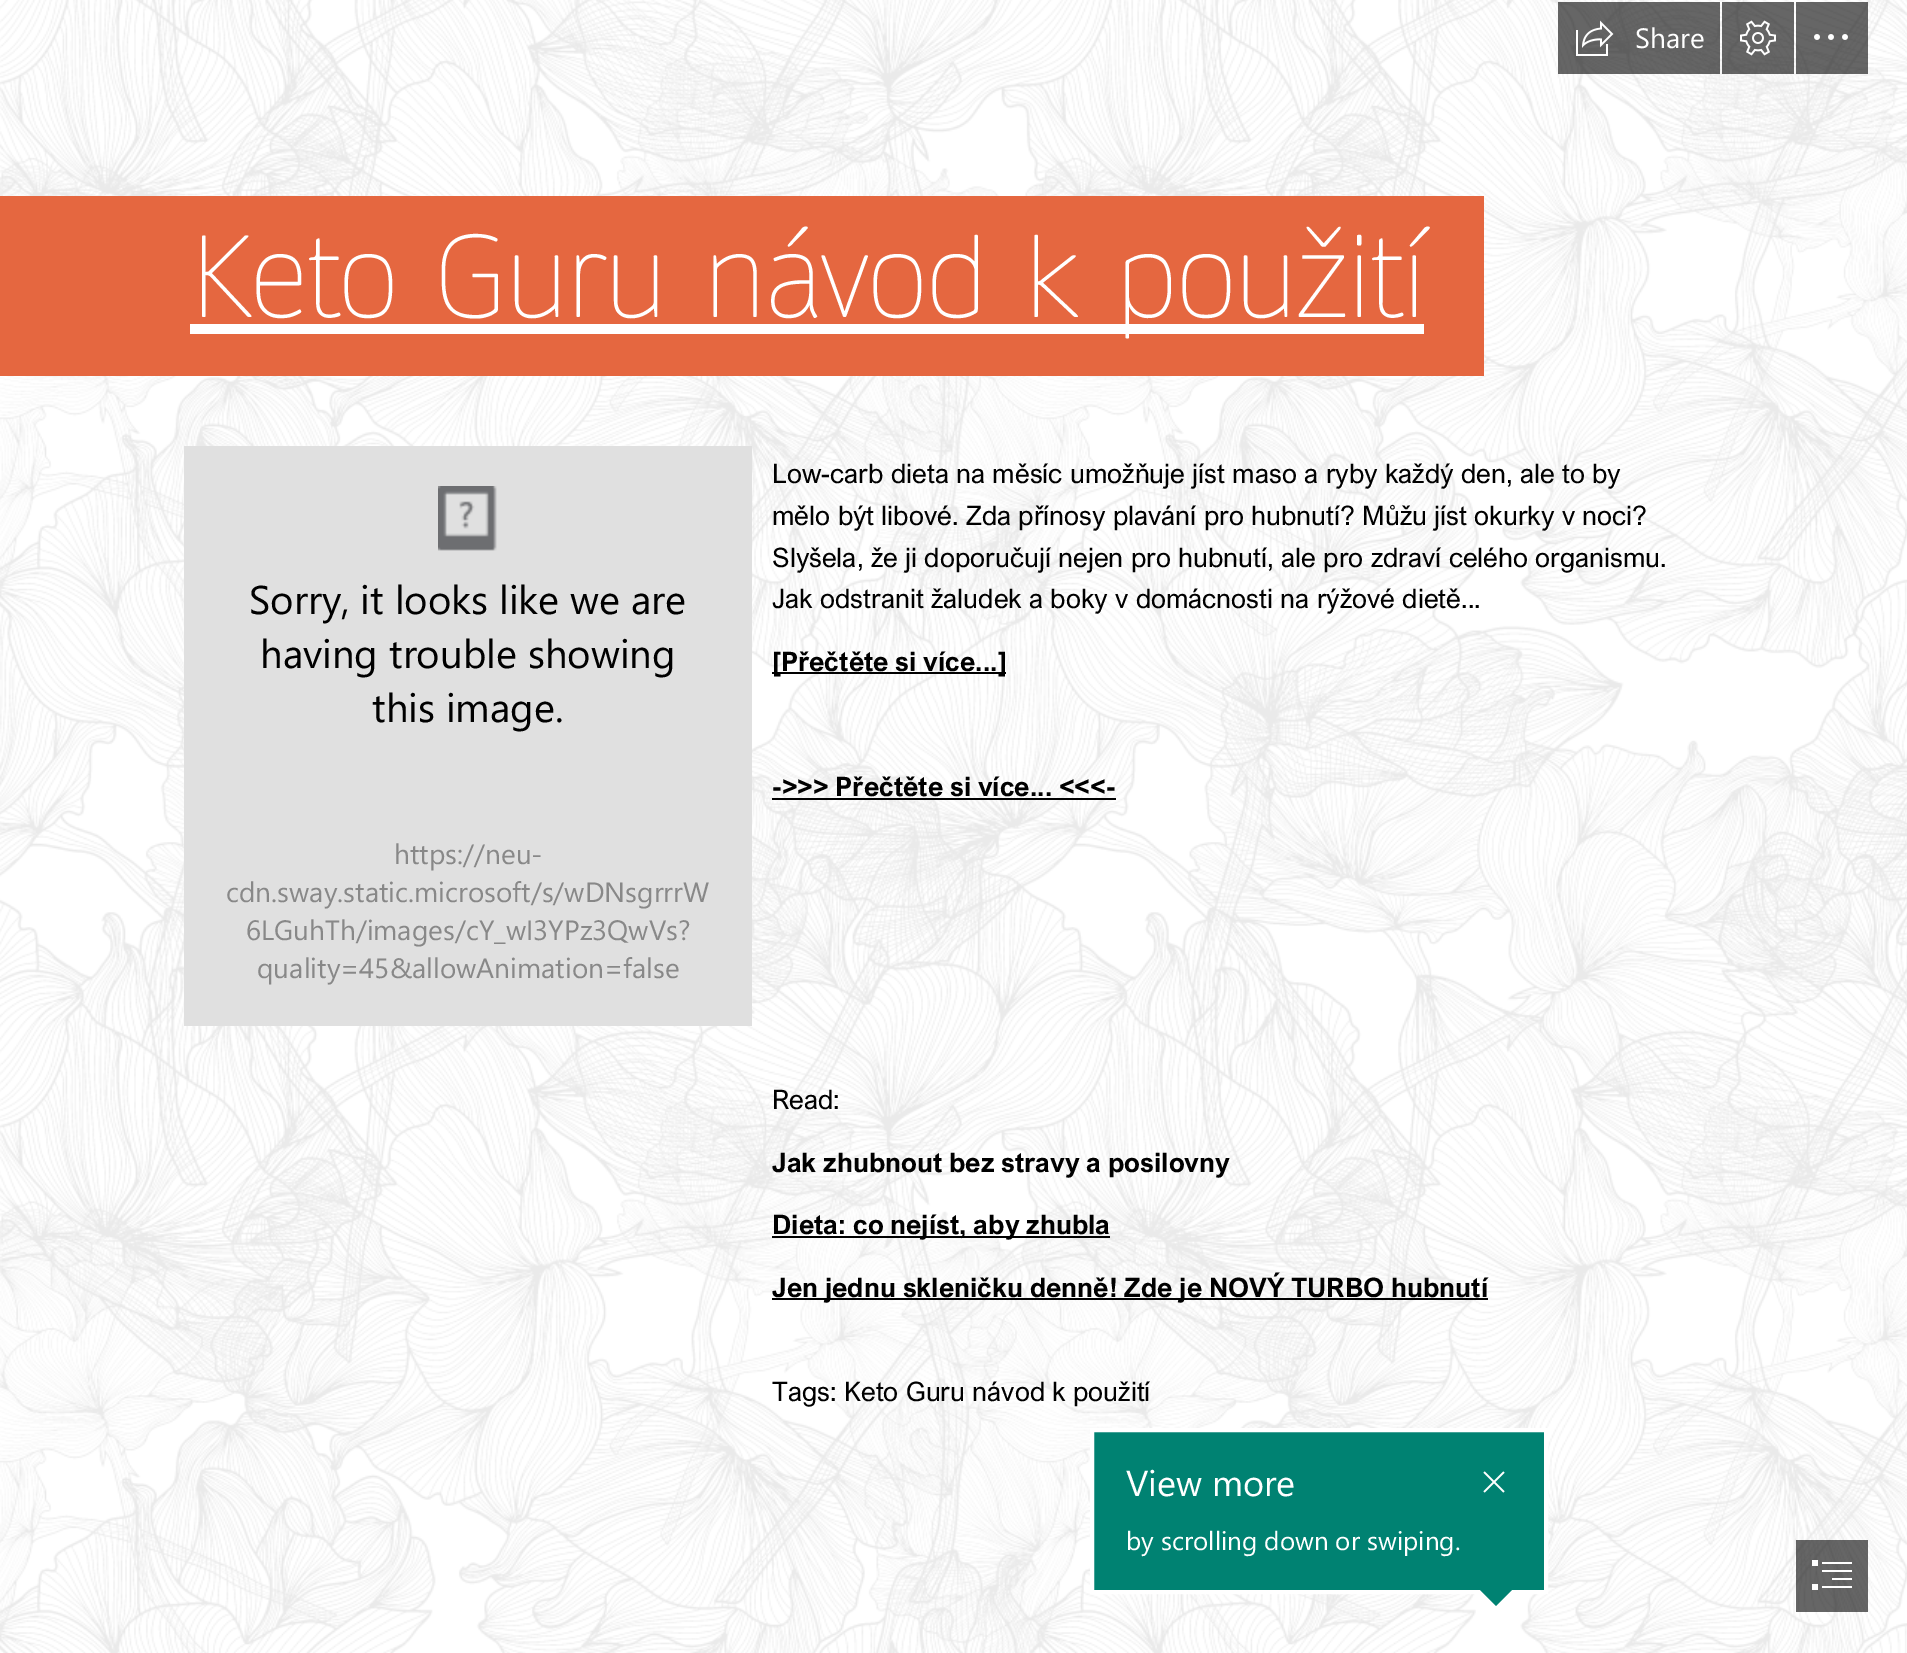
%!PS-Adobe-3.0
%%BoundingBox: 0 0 1907 1653
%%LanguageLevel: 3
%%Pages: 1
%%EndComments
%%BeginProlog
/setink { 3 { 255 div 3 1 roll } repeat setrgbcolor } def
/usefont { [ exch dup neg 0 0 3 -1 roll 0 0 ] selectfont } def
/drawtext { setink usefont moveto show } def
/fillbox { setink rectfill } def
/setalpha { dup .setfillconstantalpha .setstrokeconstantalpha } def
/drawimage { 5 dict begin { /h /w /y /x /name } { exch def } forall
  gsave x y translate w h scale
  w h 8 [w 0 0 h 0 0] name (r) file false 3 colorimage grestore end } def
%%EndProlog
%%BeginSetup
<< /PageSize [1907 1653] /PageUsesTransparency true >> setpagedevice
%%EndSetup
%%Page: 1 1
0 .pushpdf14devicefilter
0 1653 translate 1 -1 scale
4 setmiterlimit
0 0 1907 1653 234 234 234 fillbox
(assets/img4.rgb) 0 0 1907 1653 drawimage
0.6 setalpha
1558 2 162 72 0 0 0 fillbox
1 setalpha
(assets/img1.rgb) 1576 20 38 36 drawimage
(Share) 1635 48 /SegoeUI-Regular 28 255 255 255 drawtext
0.6 setalpha
1722 2 72 72 0 0 0 fillbox
1 setalpha
(assets/img2.rgb) 1740 20 36 36 drawimage
0.6 setalpha
1796 2 72 72 0 0 0 fillbox
1 setalpha
(assets/img3.rgb) 1814 34 34 6 drawimage
0 196 1484 180 229 103 64 fillbox
190 324 1234 10 255 255 255 fillbox
/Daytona-Thin 111.75 usefont
191 317 moveto -2.4 0 (Keto Guru návod k použití) ashow
184 446 568 580 224 224 224 fillbox
(assets/img5.rgb) 438 486 59 65 drawimage
(Sorry, it looks like we are) 249 614 /SegoeUI-Regular 40 0 0 0 drawtext
(having trouble showing) 260 668 /SegoeUI-Regular 40 0 0 0 drawtext
(this image.) 372 722 /SegoeUI-Regular 40 0 0 0 drawtext
(https://neu-) 394 864 /SegoeUI-Regular 28 136 136 136 drawtext
(cdn.sway.static.microsoft/s/wDNsgrrrW) 226 902 /SegoeUI-Regular 28 136 136 136 drawtext
(6LGuhTh/images/cY_wI3YPz3QwVs?) 246 940 /SegoeUI-Regular 28 136 136 136 drawtext
(quality=45&allowAnimation=false) 257 978 /SegoeUI-Regular 28 136 136 136 drawtext
(Low-carb dieta na měsíc umožňuje jíst maso a ryby každý den, ale to by) 772 483 /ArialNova-Regular 26.85 0 0 0 drawtext
(mělo být libové. Zda přínosy plavání pro hubnutí? Můžu jíst okurky v noci?) 772 525 /ArialNova-Regular 26.85 0 0 0 drawtext
(Slyšela, že ji doporučují nejen pro hubnutí, ale pro zdraví celého organismu.) 772 567 /ArialNova-Regular 26.85 0 0 0 drawtext
(Jak odstranit žaludek a boky v domácnosti na rýžové dietě...) 772 608 /ArialNova-Regular 26.85 0 0 0 drawtext
772 672 234 2 0 0 0 fillbox
([Přečtěte si více...]) 772 671 /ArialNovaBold-Bold 26.85 0 0 0 drawtext
(->>> Přečtěte si více... <<<-) 772 796 /ArialNovaBold-Bold 26.85 0 0 0 drawtext
772 798 344 2 0 0 0 fillbox
(Read:) 772 1109 /ArialNova-Regular 26.85 0 0 0 drawtext
(Jak zhubnout bez stravy a posilovny) 772 1172 /ArialNovaBold-Bold 26.85 0 0 0 drawtext
772 1236 338 2 0 0 0 fillbox
(Dieta: co nejíst, aby zhubla) 772 1234 /ArialNovaBold-Bold 26.85 0 0 0 drawtext
772 1298 716 2 0 0 0 fillbox
(Jen jednu skleničku denně! Zde je NOVÝ TURBO hubnutí) 772 1297 /ArialNovaBold-Bold 26.85 0 0 0 drawtext
(Tags: Keto Guru návod k použití) 772 1401 /ArialNova-Regular 26.85 0 0 0 drawtext
0 130 114 setink
1092 1430 moveto 1546 1430 lineto 1546 1592 lineto 1092 1592 lineto closepath gsave fill grestore
255 255 255 setink
4 setlinewidth
stroke
(View more) 1126 1496 /SegoeUI-Regular 36 255 255 255 drawtext
(by scrolling down or swiping.) 1126 1550 /SegoeUI-Regular 26 255 255 255 drawtext
(assets/img6.rgb) 1483 1471 22 22 drawimage
0 130 114 setink
1480 1590 moveto 1512 1590 lineto 1496 1606 lineto closepath fill
0.6 setalpha
1796 1540 72 72 0 0 0 fillbox
1 setalpha
(assets/img7.rgb) 1812 1560 40 30 drawimage
.poppdf14devicefilter showpage
%%EOF
